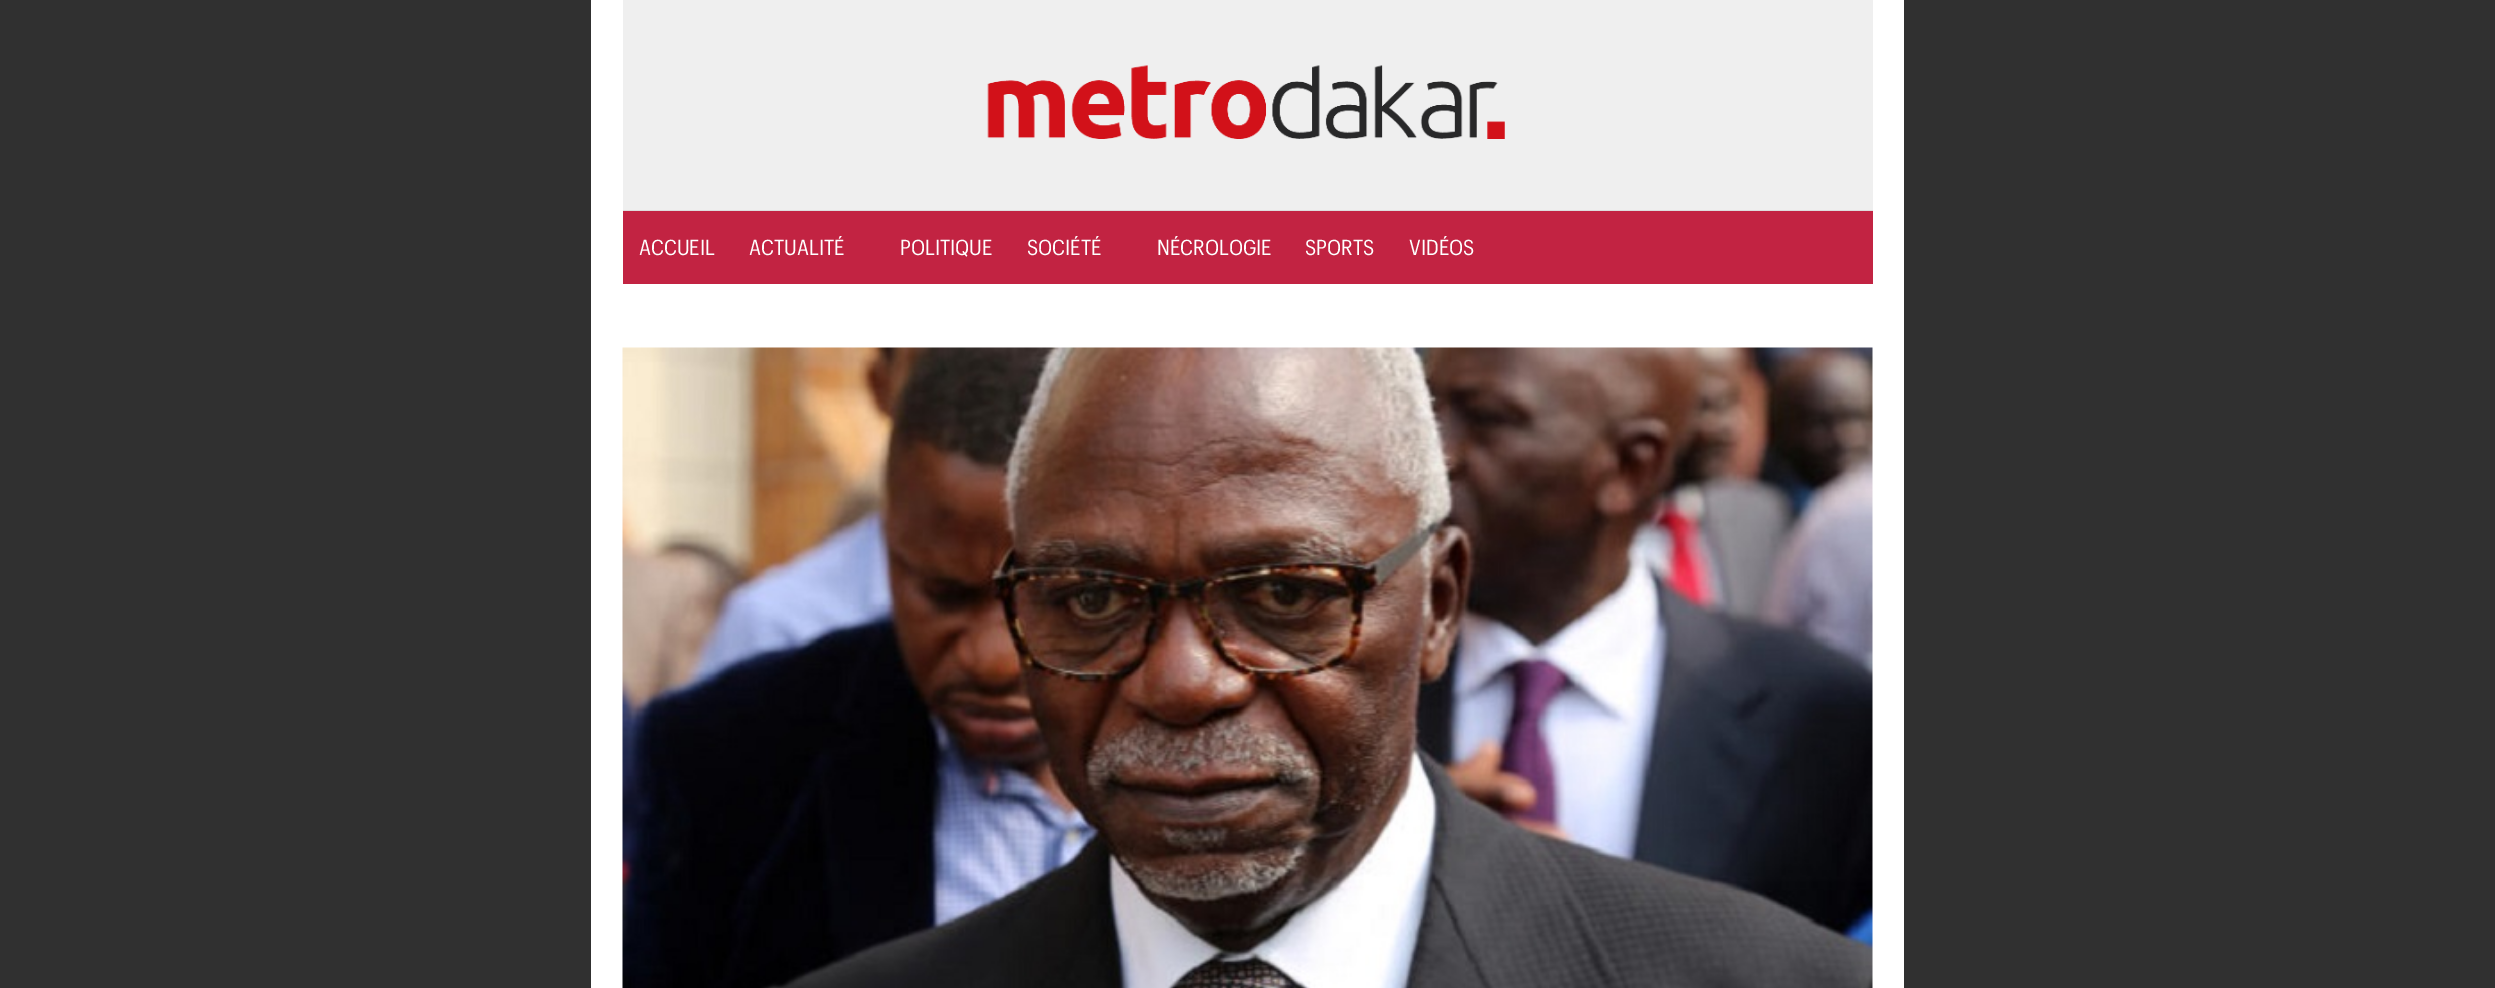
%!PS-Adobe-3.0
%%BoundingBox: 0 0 2495 988
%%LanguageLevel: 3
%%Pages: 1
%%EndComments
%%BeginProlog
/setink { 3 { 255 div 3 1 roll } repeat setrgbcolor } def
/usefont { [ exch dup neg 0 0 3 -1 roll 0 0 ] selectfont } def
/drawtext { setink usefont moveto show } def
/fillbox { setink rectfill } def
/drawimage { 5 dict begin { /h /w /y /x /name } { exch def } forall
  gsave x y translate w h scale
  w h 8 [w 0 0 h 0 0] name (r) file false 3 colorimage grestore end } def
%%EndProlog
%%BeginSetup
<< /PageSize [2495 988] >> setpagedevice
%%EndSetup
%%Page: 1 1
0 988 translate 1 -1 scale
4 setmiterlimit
0 0 2495 988 48 48 48 fillbox
591 0 1313 988 255 255 255 fillbox
623 0 1250 210 239 239 239 fillbox
(assets/img1.rgb) 987 65 518 74 drawimage
623 210 1250 1 221 221 221 fillbox
623 211 1250 73 194 35 66 fillbox
(ACCUEIL) 639 255 /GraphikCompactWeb-Regular 21.25 255 255 255 drawtext
(ACTUALITÉ) 749 255 /GraphikCompactWeb-Regular 21.25 255 255 255 drawtext
(POLITIQUE) 900 255 /GraphikCompactWeb-Regular 21.25 255 255 255 drawtext
(SOCIÉTÉ) 1027 255 /GraphikCompactWeb-Regular 21.25 255 255 255 drawtext
(NÉCROLOGIE) 1157 255 /GraphikCompactWeb-Regular 21.25 255 255 255 drawtext
(SPORTS) 1305 255 /GraphikCompactWeb-Regular 21.25 255 255 255 drawtext
(VIDÉOS) 1409 255 /GraphikCompactWeb-Regular 21.25 255 255 255 drawtext
(assets/img2.rgb) 622 347 1251 641 drawimage
showpage
%%EOF
